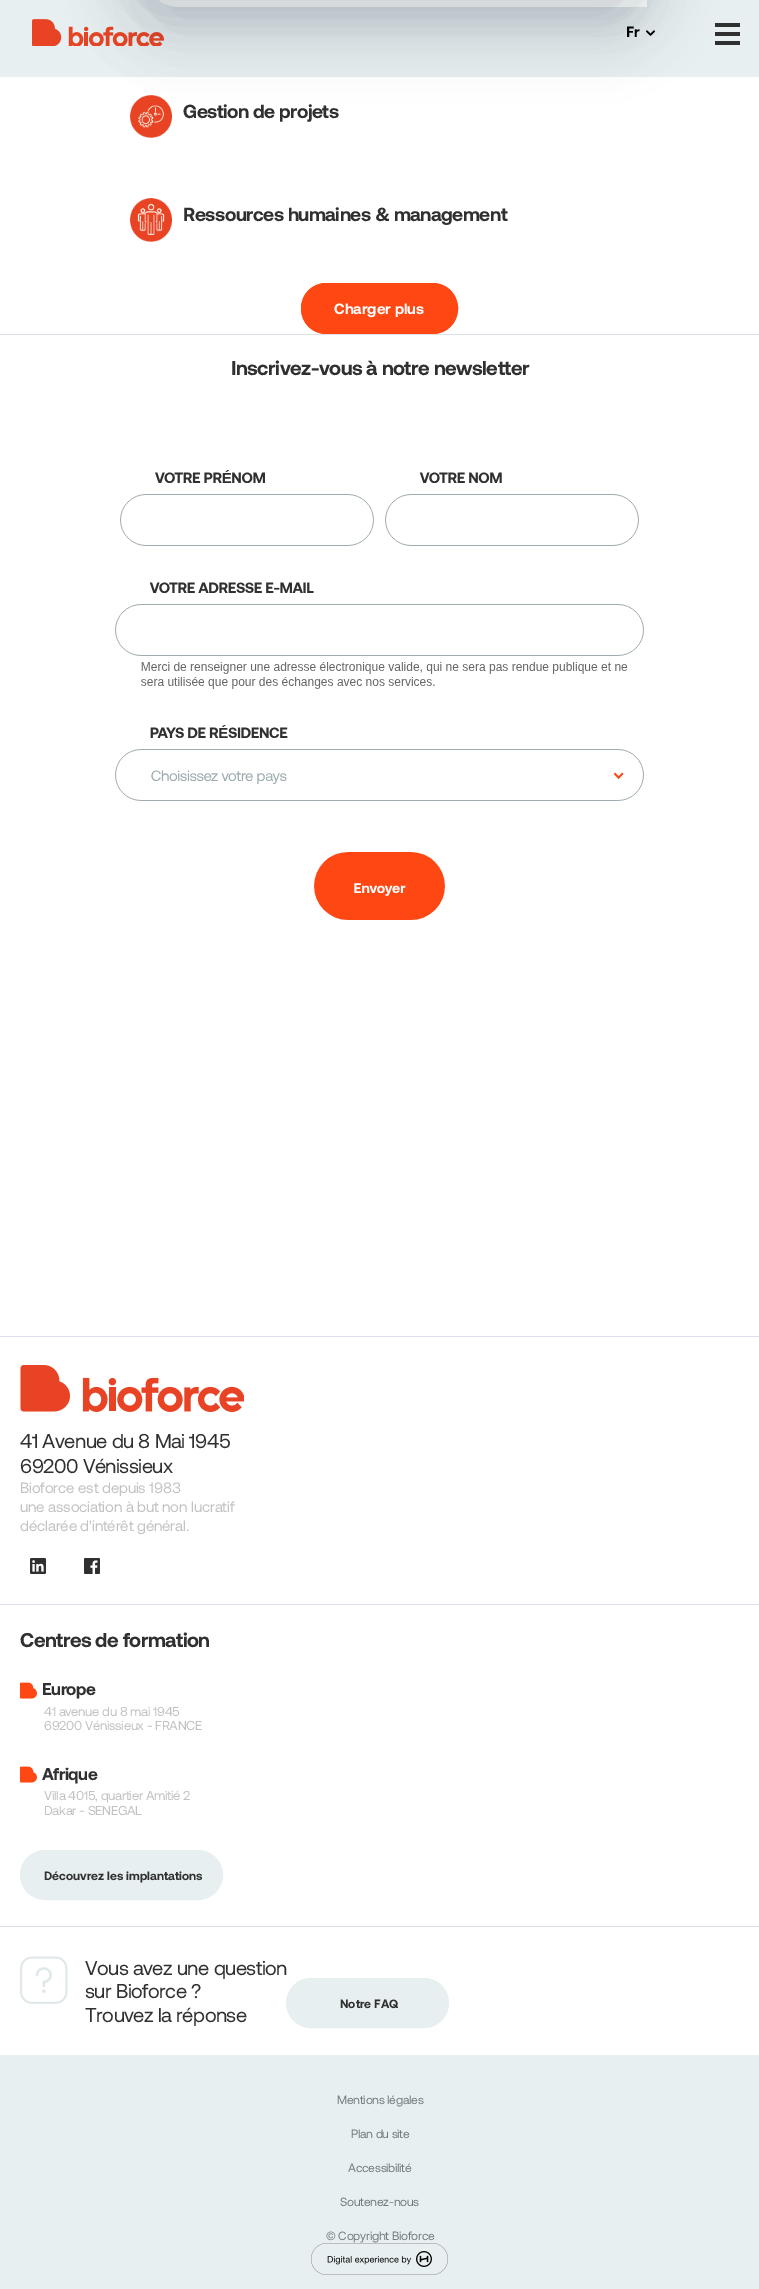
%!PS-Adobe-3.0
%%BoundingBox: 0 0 759 2289
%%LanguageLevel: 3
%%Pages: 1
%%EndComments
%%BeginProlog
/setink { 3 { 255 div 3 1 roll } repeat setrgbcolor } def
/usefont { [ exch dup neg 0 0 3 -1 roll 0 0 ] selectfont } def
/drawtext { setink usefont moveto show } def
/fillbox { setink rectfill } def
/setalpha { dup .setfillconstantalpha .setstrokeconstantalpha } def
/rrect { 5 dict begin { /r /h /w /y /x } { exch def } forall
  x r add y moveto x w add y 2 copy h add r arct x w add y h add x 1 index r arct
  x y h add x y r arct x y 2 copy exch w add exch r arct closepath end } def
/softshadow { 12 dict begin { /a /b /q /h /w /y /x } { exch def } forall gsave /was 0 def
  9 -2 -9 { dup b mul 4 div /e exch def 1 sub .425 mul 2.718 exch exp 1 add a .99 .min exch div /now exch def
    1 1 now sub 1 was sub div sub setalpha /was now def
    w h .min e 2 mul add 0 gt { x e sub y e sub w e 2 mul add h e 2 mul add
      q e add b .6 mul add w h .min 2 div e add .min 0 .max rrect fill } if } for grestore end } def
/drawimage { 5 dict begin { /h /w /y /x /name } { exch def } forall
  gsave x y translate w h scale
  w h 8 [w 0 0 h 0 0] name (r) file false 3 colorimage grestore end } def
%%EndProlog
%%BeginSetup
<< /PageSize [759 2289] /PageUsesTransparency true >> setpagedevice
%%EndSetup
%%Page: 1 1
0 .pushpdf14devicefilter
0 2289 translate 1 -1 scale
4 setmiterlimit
0 0 759 2289 255 255 255 fillbox
0 0 759 77 232 239 241 fillbox
(assets/img1.rgb) 32 19 132 27 drawimage
(Fr) 626 37 /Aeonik-Bold 15 0 0 0 drawtext
(assets/img2.rgb) 646 30 9 6 drawimage
715 23 25 4 48 48 48 fillbox
715 32 25 4 48 48 48 fillbox
715 41 25 4 48 48 48 fillbox
(assets/img3.rgb) 130 95 42 43 drawimage
gsave
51 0 moveto 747 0 lineto 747 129 lineto 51 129 lineto closepath 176 -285 moveto 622 -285 lineto 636 -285 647 -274 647 -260 curveto 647 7 lineto 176 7 lineto 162 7 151 -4 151 -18 curveto 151 -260 lineto 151 -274 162 -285 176 -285 curveto closepath eoclip newpath
4 21 37 setink
151 -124 496 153 25 33 0.11 softshadow
grestore
0.5 setalpha
255 255 255 setink
176 -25 moveto 622 -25 lineto 636 -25 647 -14 647 0 curveto 647 7 lineto 176 7 lineto 162 7 151 -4 151 -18 curveto 151 0 lineto 151 -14 162 -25 176 -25 curveto closepath fill
1 setalpha
4 21 37 setink
130 -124 500 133 25 33 0.11 softshadow
140 -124 500 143 25 33 0.11 softshadow
/Aeonik-Bold 19 usefont
48 48 48 setink
183 118 moveto -0.5 0 (Gestion de projets) ashow
(assets/img4.rgb) 130 198 42 44 drawimage
183 221 moveto -0.5 0 (Ressources humaines & management) ashow
255 71 19 setink
301.5 283.5 156 50 24.5 rrect gsave fill grestore
stroke
(Charger plus) 334 314 /Aeonik-Bold 15 255 255 255 drawtext
0 334 759 1 220 224 233 fillbox
0 1336 759 1 220 224 233 fillbox
/Aeonik-Bold 20 usefont
48 48 48 setink
231 375 moveto -0.5 0 (Inscrivez-vous à notre newsletter) ashow
(assets/img5.rgb) 115 470 529 450 drawimage
(assets/img6.rgb) 20 1365 224 47 drawimage
/Aeonik-Regular 20 usefont
20 1448 moveto -0.5 0 (41 Avenue du 8 Mai 1945) ashow
20 1473 moveto -0.5 0 (69200 Vénissieux) ashow
/Aeonik-Regular 15 usefont
194 194 194 setink
20 1493 moveto -0.2 0 (Bioforce est depuis 1983) ashow
20 1512 moveto -0.2 0 (une association à but non lucratif) ashow
20 1531 moveto -0.2 0 (déclarée d'intérêt général.) ashow
(assets/img7.rgb) 30 1558 16 16 drawimage
(assets/img8.rgb) 84 1558 16 16 drawimage
0 1604 759 1 220 224 233 fillbox
/Aeonik-Bold 20 usefont
48 48 48 setink
20 1647 moveto -0.5 0 (Centres de formation) ashow
(assets/img9.rgb) 20 1682 17 17 drawimage
/Aeonik-Bold 17 usefont
42 1695 moveto -0.5 0 (Europe) ashow
/Aeonik-Regular 13 usefont
194 194 194 setink
44 1716 moveto -0.3 0 (41 avenue du 8 mai 1945) ashow
44 1730 moveto -0.3 0 (69200 Vénissieux - FRANCE) ashow
(assets/img9.rgb) 20 1766 17 17 drawimage
/Aeonik-Bold 17 usefont
48 48 48 setink
42 1780 moveto -0.5 0 (Afrique) ashow
/Aeonik-Regular 13 usefont
194 194 194 setink
44 1800 moveto -0.3 0 (Villa 4015, quartier Amitié 2) ashow
44 1815 moveto -0.3 0 (Dakar - SENEGAL) ashow
232 239 241 setink
20.5 1850.5 202 49 24.5 rrect gsave fill grestore
stroke
(Découvrez les implantations) 44 1880 /Aeonik-Bold 12 48 48 48 drawtext
0 1926 759 1 220 224 233 fillbox
(assets/img10.rgb) 20 1956 48 48 drawimage
/Aeonik-Regular 20 usefont
48 48 48 setink
85 1975 moveto -0.5 0 (Vous avez une question) ashow
85 1998 moveto -0.5 0 (sur Bioforce ?) ashow
85 2022 moveto -0.5 0 (Trouvez la réponse) ashow
232 239 241 setink
286.5 1978.5 162 49 24.5 rrect gsave fill grestore
stroke
(Notre FAQ) 340 2008 /Aeonik-Bold 12 48 48 48 drawtext
0 2055 759 234 232 239 241 fillbox
/Aeonik-Regular 12 usefont
117 124 126 setink
337 2104 moveto -0.25 0 (Mentions légales) ashow
351 2138 moveto -0.25 0 (Plan du site) ashow
348 2172 moveto -0.25 0 (Accessibilité) ashow
340 2206 moveto -0.25 0 (Soutenez-nous) ashow
326 2240 moveto -0.25 0 (© Copyright Bioforce) ashow
(assets/img11.rgb) 311 2243 137 32 drawimage
.poppdf14devicefilter showpage
%%EOF
